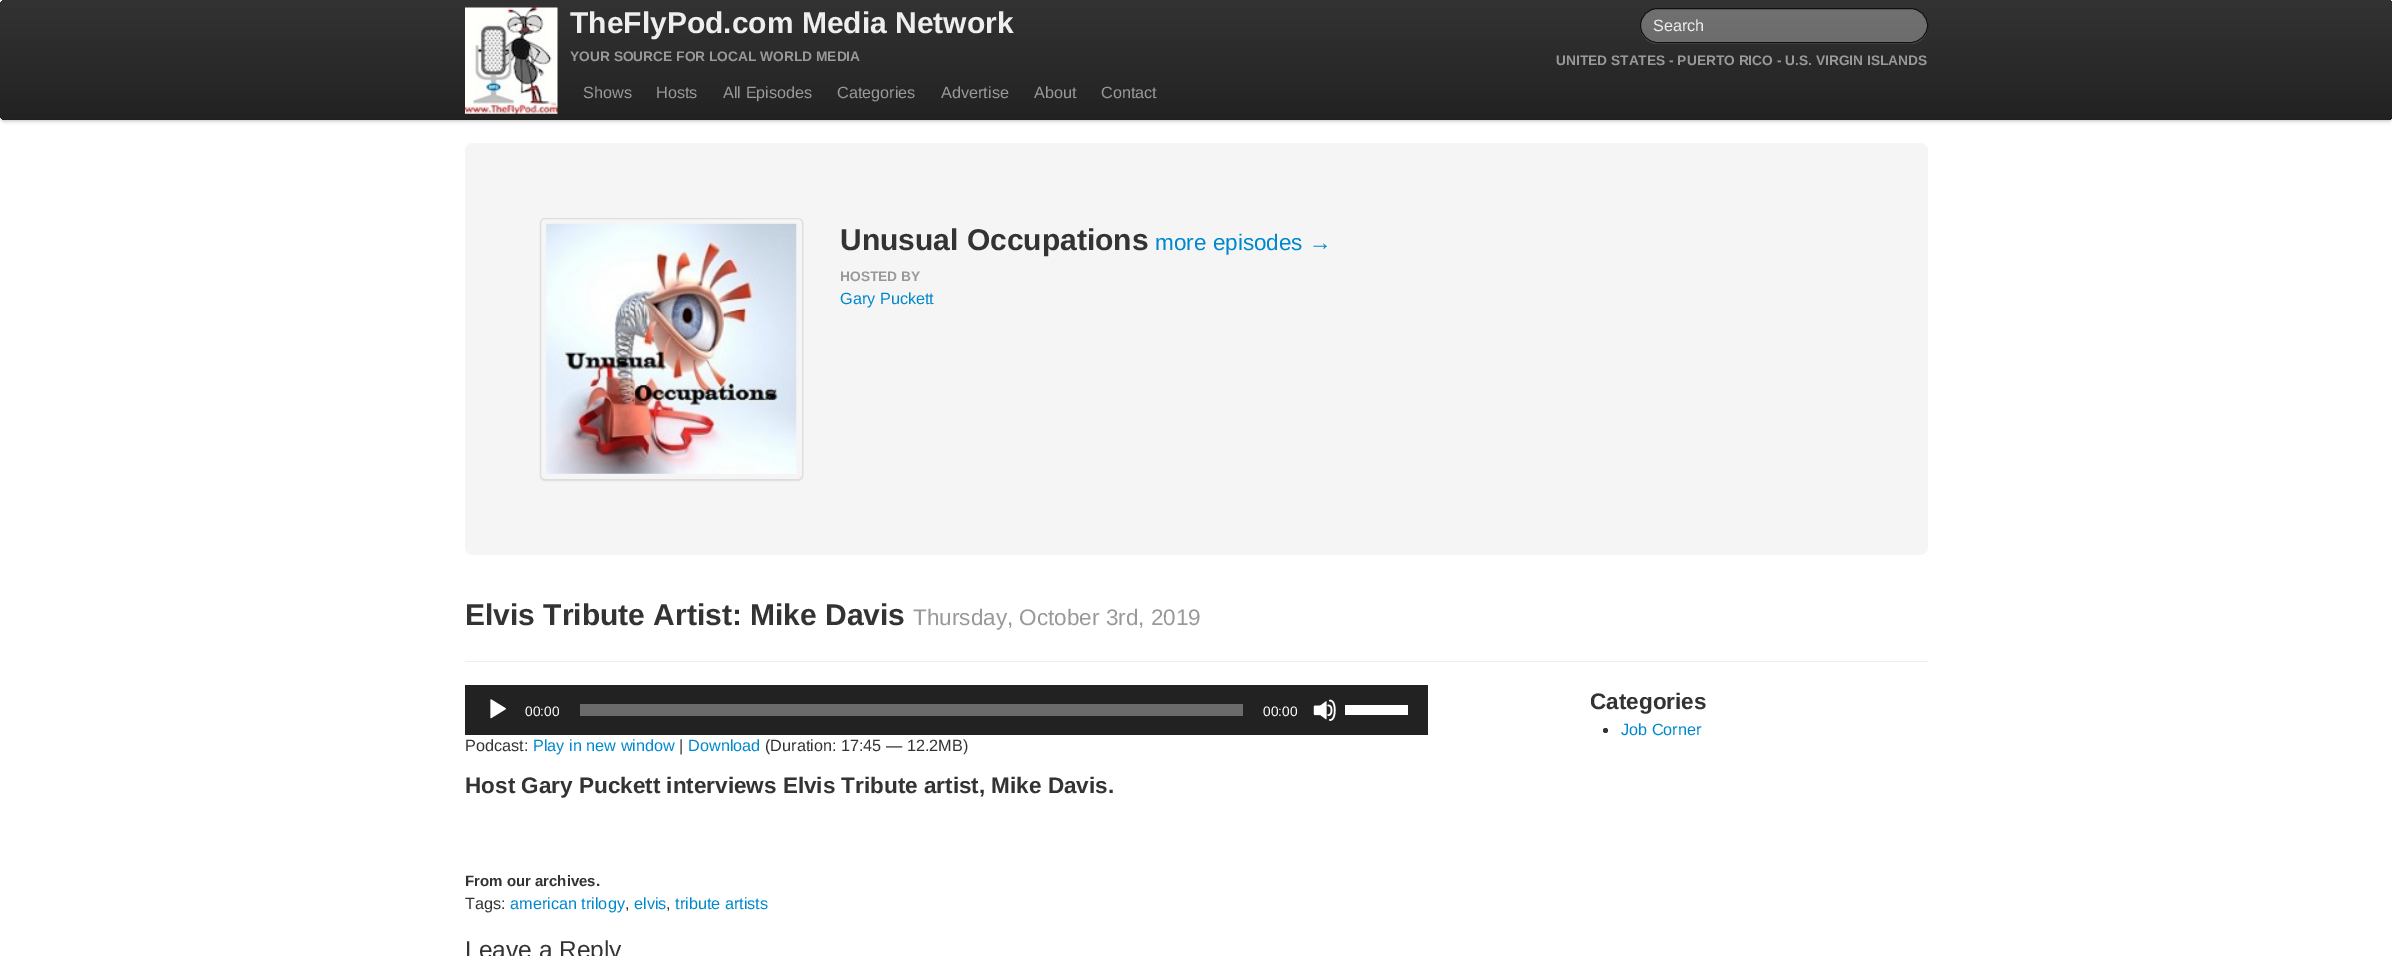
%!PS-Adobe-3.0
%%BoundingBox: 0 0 2392 956
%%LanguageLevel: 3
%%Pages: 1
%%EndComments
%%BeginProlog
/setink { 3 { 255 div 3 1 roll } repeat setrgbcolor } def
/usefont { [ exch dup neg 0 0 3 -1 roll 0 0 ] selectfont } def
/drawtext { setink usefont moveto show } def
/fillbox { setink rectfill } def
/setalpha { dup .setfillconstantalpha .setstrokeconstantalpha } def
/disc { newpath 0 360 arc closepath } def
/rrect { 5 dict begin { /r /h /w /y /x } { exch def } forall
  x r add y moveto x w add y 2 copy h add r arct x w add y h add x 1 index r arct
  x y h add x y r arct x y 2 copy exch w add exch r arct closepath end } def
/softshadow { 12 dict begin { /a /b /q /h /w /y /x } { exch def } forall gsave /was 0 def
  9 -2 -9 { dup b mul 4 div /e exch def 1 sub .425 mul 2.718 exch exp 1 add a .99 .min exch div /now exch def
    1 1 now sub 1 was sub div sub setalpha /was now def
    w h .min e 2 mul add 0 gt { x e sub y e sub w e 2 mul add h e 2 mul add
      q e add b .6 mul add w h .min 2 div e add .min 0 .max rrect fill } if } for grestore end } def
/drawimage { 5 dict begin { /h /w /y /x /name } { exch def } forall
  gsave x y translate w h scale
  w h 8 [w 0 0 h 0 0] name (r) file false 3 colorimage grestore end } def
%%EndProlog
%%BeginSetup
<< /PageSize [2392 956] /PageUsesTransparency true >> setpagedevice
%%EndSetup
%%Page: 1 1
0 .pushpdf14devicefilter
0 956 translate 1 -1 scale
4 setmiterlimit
0 0 2392 956 255 255 255 fillbox
0 0 0 setink
0 1 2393 120 5 2 0.25 softshadow
gsave 0 0 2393 120 5 rrect clip newpath
<< /ShadingType 2 /ColorSpace /DeviceRGB /Coords [1196 0 1196 120] /Extend [true true] /Function << /FunctionType 2 /Domain [0 1] /C0 [0.2 0.2 0.2] /C1 [0.133 0.133 0.133] /N 1 >> >> shfill grestore
0.1 setalpha
0 114 moveto 0 117 2 120 5 120 curveto 2388 120 lineto 2391 120 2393 118 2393 115 curveto 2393 4 lineto 2391 1 lineto 2392 4 lineto 2392 114 lineto 2392 117 2390 119 2388 119 curveto 5 119 lineto 2 119 0 117 0 114 curveto closepath fill
1 setalpha
(assets/img1.rgb) 465 7 93 107 drawimage
(TheFlyPod.com Media Network) 570 33 /LiberationSans-Bold 30 238 238 238 drawtext
(YOUR SOURCE FOR LOCAL WORLD MEDIA) 570 61 /LiberationSans-Bold 13.75 153 153 153 drawtext
77 77 77 setink
1640 26 moveto 1640 36 1648 44 1658 44 curveto 1910 44 lineto 1920 44 1928 36 1928 26 curveto 1928 24 1928 22 1927 20 curveto 1928 25 lineto 1928 35 1920 42 1910 42 curveto 1658 42 lineto 1648 42 1640 35 1640 26 curveto closepath fill
0.3 setalpha
255 255 255 setink
1640.5 8.5 287 34 17 rrect fill
1 setalpha
17 17 17 setink
1640.5 8.5 287 34 17 rrect stroke
(Search) 1653 31 /LiberationSans-Regular 16.25 238 238 238 drawtext
(UNITED STATES - PUERTO RICO - U.S. VIRGIN ISLANDS) 1556 65 /LiberationSans-Bold 13.75 153 153 153 drawtext
(Shows) 583 98 /LiberationSans-Regular 16.25 153 153 153 drawtext
(Hosts) 656 98 /LiberationSans-Regular 16.25 153 153 153 drawtext
(All Episodes) 723 98 /LiberationSans-Regular 16.25 153 153 153 drawtext
(Categories) 837 98 /LiberationSans-Regular 16.25 153 153 153 drawtext
(Advertise) 941 98 /LiberationSans-Regular 16.25 153 153 153 drawtext
(About) 1034 98 /LiberationSans-Regular 16.25 153 153 153 drawtext
(Contact) 1101 98 /LiberationSans-Regular 16.25 153 153 153 drawtext
245 245 245 setink
465 143 1463 412 8 rrect fill
gsave
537 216 moveto 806 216 lineto 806 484 lineto 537 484 lineto closepath 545 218 moveto 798 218 lineto 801 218 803 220 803 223 curveto 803 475 lineto 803 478 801 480 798 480 curveto 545 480 lineto 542 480 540 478 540 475 curveto 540 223 lineto 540 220 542 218 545 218 curveto closepath eoclip newpath
0 0 0 setink
540 219 263 262 5 0.5 0.07 softshadow
grestore
221 221 221 setink
540.5 218.5 262 261 4.5 rrect stroke
(assets/img2.rgb) 546 223 251 251 drawimage
(Unusual Occupations) 840 250 /LiberationSans-Bold 30 51 51 51 drawtext
(more episodes →) 1155 250 /LiberationSans-Regular 22.5 0 136 204 drawtext
(HOSTED BY) 840 281 /LiberationSans-Bold 13.75 153 153 153 drawtext
(Gary Puckett) 840 304 /LiberationSans-Regular 16.25 0 136 204 drawtext
465 661 1463 1 238 238 238 fillbox
(Elvis Tribute Artist: Mike Davis) 465 625 /LiberationSans-Bold 30 51 51 51 drawtext
(Thursday, October 3rd, 2019) 913 625 /LiberationSans-Regular 22.5 153 153 153 drawtext
465 685 963 50 34 34 34 fillbox
(assets/img3.rgb) 490 699 16 20 drawimage
(00:00) 525 716 /LiberationSans-Regular 13.75 255 255 255 drawtext
580 704 663 12 107 107 107 fillbox
(00:00) 1263 716 /LiberationSans-Regular 13.75 255 255 255 drawtext
(assets/img4.rgb) 1313 699 23 22 drawimage
1345 705 63 10 255 255 255 fillbox
(Podcast:) 465 751 /LiberationSans-Regular 16.25 51 51 51 drawtext
(Play in new window) 533 751 /LiberationSans-Regular 16.25 0 136 204 drawtext
(|) 679 751 /LiberationSans-Regular 16.25 51 51 51 drawtext
(Download) 688 751 /LiberationSans-Regular 16.25 0 136 204 drawtext
(\(Duration: 17:45 — 12.2MB\)) 765 751 /LiberationSans-Regular 16.25 51 51 51 drawtext
(Host Gary Puckett interviews Elvis Tribute artist, Mike Davis.) 465 793 /LiberationSans-Bold 22.5 51 51 51 drawtext
(From our archives.) 465 886 /LiberationSans-Bold 15 51 51 51 drawtext
(Tags:) 465 909 /LiberationSans-Regular 16.25 51 51 51 drawtext
(american trilogy) 510 909 /LiberationSans-Regular 16.25 0 136 204 drawtext
(,) 625 909 /LiberationSans-Regular 16.25 51 51 51 drawtext
(elvis) 634 909 /LiberationSans-Regular 16.25 0 136 204 drawtext
(,) 666 909 /LiberationSans-Regular 16.25 51 51 51 drawtext
(tribute artists) 675 909 /LiberationSans-Regular 16.25 0 136 204 drawtext
(Leave a Reply) 465 958 /LiberationSans-Regular 24.5 51 51 51 drawtext
(Categories) 1590 709 /LiberationSans-Bold 22.5 51 51 51 drawtext
1605.5 730.5 2.5 disc fill
(Job Corner) 1621 735 /LiberationSans-Regular 16.25 0 136 204 drawtext
.poppdf14devicefilter showpage
%%EOF
